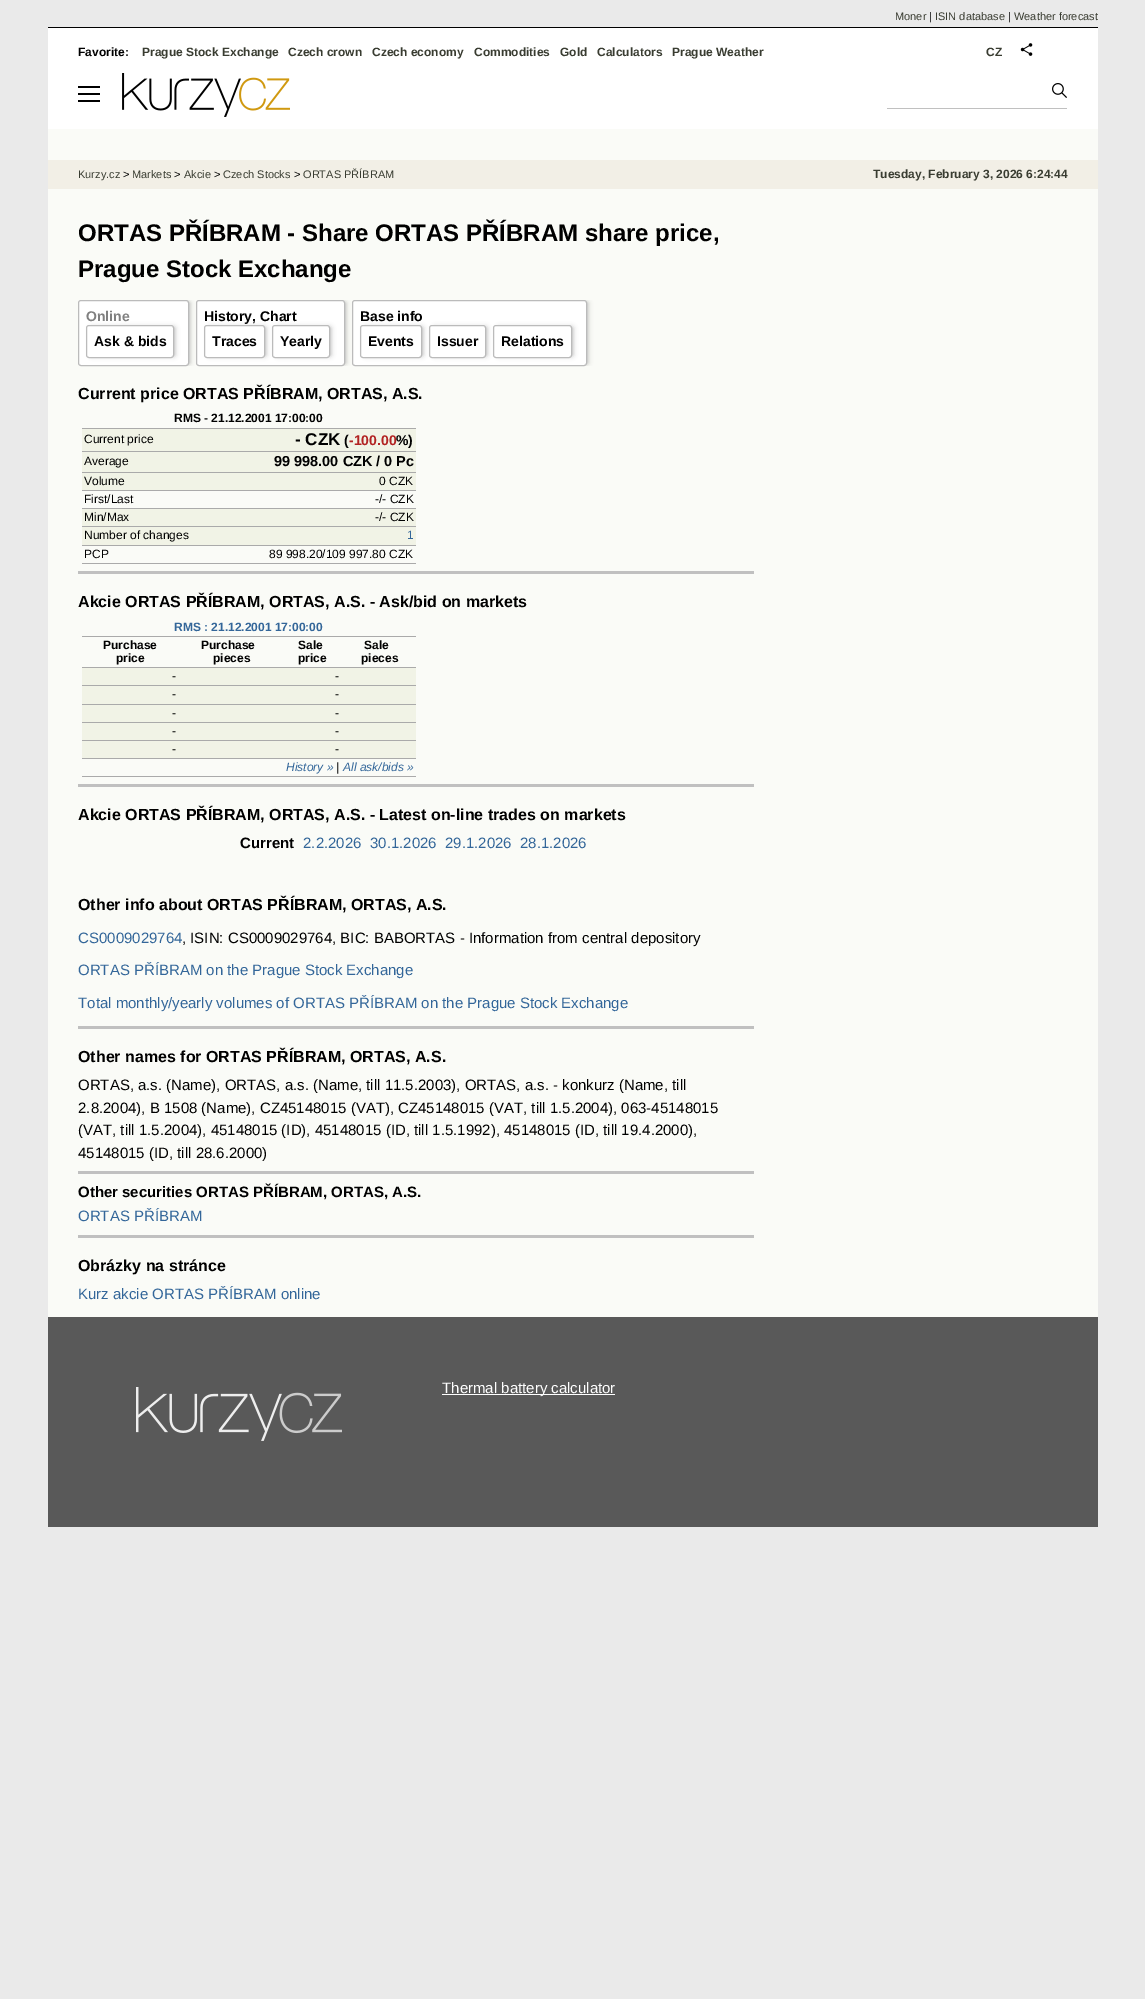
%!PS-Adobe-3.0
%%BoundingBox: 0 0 1145 1999
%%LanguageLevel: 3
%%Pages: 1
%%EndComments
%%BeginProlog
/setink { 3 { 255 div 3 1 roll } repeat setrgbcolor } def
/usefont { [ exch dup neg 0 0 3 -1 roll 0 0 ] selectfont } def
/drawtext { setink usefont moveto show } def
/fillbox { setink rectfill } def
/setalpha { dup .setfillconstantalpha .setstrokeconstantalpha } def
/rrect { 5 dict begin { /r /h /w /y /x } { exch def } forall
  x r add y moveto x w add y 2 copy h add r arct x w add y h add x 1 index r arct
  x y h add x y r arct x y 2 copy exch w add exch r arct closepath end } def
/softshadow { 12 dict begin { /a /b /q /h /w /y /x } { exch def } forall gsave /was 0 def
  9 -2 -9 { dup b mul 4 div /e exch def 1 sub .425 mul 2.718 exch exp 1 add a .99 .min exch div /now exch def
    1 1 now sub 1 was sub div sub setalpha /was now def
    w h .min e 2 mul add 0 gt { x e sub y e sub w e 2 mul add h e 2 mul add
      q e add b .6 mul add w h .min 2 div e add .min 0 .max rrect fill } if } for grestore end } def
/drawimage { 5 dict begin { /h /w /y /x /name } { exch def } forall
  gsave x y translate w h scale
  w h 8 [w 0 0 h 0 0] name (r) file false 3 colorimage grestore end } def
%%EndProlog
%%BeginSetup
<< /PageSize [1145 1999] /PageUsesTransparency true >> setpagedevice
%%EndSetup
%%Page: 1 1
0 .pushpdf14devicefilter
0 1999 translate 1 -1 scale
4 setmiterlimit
0 0 1145 1999 234 234 234 fillbox
48 129 1050 1188 250 251 247 fillbox
48 27 1050 1 0 0 0 fillbox
(Moner) 895 20 /LiberationSans-Regular 11 57 60 49 drawtext
(|) 929 20 /LiberationSans-Regular 11 0 0 0 drawtext
(ISIN database) 935 20 /LiberationSans-Regular 11 57 60 49 drawtext
(|) 1008 20 /LiberationSans-Regular 11 0 0 0 drawtext
(Weather forecast) 1014 20 /LiberationSans-Regular 11 57 60 49 drawtext
48 28 1050 101 255 255 255 fillbox
78 86 22 2 0 0 0 fillbox
(assets/img1.rgb) 122 73 168 44 drawimage
887 108 180 1 192 192 192 fillbox
(assets/img2.rgb) 1052 83 15 15 drawimage
78 93 22 2 0 0 0 fillbox
78 100 22 2 0 0 0 fillbox
(Favorite:) 78 56 /LiberationSans-Bold 12 0 0 0 drawtext
(Prague Stock Exchange) 142 56 /LiberationSans-Bold 12 57 60 49 drawtext
(Czech crown) 288 56 /LiberationSans-Bold 12 57 60 49 drawtext
(Czech economy) 372 56 /LiberationSans-Bold 12 57 60 49 drawtext
(Commodities) 474 56 /LiberationSans-Bold 12 57 60 49 drawtext
(Gold) 560 56 /LiberationSans-Bold 12 57 60 49 drawtext
(Calculators) 597 56 /LiberationSans-Bold 12 57 60 49 drawtext
(Prague Weather) 672 56 /LiberationSans-Bold 12 57 60 49 drawtext
(CZ) 986 56 /LiberationSans-Bold 12 57 60 49 drawtext
(assets/img3.rgb) 1020 43 13 13 drawimage
48 160 1050 29 242 239 230 fillbox
(Kurzy.cz) 78 178 /LiberationSans-Regular 11 57 60 49 drawtext
(>) 123 178 /LiberationSans-Regular 11 0 0 0 drawtext
(Markets) 132 178 /LiberationSans-Regular 11 57 60 49 drawtext
(>) 174 178 /LiberationSans-Regular 11 0 0 0 drawtext
(Akcie) 184 178 /LiberationSans-Regular 11 57 60 49 drawtext
(>) 214 178 /LiberationSans-Regular 11 0 0 0 drawtext
(Czech Stocks) 223 178 /LiberationSans-Regular 11 57 60 49 drawtext
(>) 294 178 /LiberationSans-Regular 11 0 0 0 drawtext
(ORTAS PŘÍBRAM) 303 178 /LiberationSans-Regular 11 57 60 49 drawtext
(Tuesday, February 3, 2026 6:24:44) 873 178 /LiberationSans-Bold 12 57 60 49 drawtext
(ORTAS PŘÍBRAM - Share ORTAS PŘÍBRAM share price,) 78 241 /LiberationSans-Bold 24 0 0 0 drawtext
(Prague Stock Exchange) 78 277 /LiberationSans-Bold 24 0 0 0 drawtext
gsave
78 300 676 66 rectclip
187 187 187 setink
83 302 107 62 1 2.5 1 softshadow
grestore
255 255 255 setink
78.5 300.5 110 65 2.5 rrect gsave fill grestore
187 187 187 setink
stroke
(Online) 86 321 /LiberationSans-Bold 14 128 128 128 drawtext
187 187 187 setink
91 327 84 29 1 2.5 1 softshadow
255 255 255 setink
86.5 325.5 87 32 2.5 rrect gsave fill grestore
187 187 187 setink
stroke
(Ask & bids) 94 346 /LiberationSans-Bold 14 0 0 0 drawtext
gsave
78 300 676 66 rectclip
187 187 187 setink
201 302 145 62 1 2.5 1 softshadow
grestore
255 255 255 setink
196.5 300.5 148 65 2.5 rrect gsave fill grestore
187 187 187 setink
stroke
(History, Chart) 204 321 /LiberationSans-Bold 14 0 0 0 drawtext
187 187 187 setink
209 327 57 29 1 2.5 1 softshadow
255 255 255 setink
204.5 325.5 60 32 2.5 rrect gsave fill grestore
187 187 187 setink
stroke
(Traces) 212 346 /LiberationSans-Bold 14 0 0 0 drawtext
187 187 187 setink
277 327 54 29 1 2.5 1 softshadow
255 255 255 setink
272.5 325.5 57 32 2.5 rrect gsave fill grestore
187 187 187 setink
stroke
(Yearly) 280 346 /LiberationSans-Bold 14 0 0 0 drawtext
gsave
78 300 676 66 rectclip
187 187 187 setink
357 302 231 62 1 2.5 1 softshadow
grestore
255 255 255 setink
352.5 300.5 234 65 2.5 rrect gsave fill grestore
187 187 187 setink
stroke
(Base info) 360 321 /LiberationSans-Bold 14 0 0 0 drawtext
187 187 187 setink
365 327 58 29 1 2.5 1 softshadow
255 255 255 setink
360.5 325.5 61 32 2.5 rrect gsave fill grestore
187 187 187 setink
stroke
(Events) 368 346 /LiberationSans-Bold 14 0 0 0 drawtext
187 187 187 setink
434 327 53 29 1 2.5 1 softshadow
255 255 255 setink
429.5 325.5 56 32 2.5 rrect gsave fill grestore
187 187 187 setink
stroke
(Issuer) 437 346 /LiberationSans-Bold 14 0 0 0 drawtext
187 187 187 setink
498 327 75 29 1 2.5 1 softshadow
255 255 255 setink
493.5 325.5 78 32 2.5 rrect gsave fill grestore
187 187 187 setink
stroke
(Relations) 501 346 /LiberationSans-Bold 14 0 0 0 drawtext
(Current price ORTAS PŘÍBRAM, ORTAS, A.S.) 78 399 /LiberationSans-Bold 16 0 0 0 drawtext
82 428 334 1 170 170 170 fillbox
(RMS - 21.12.2001 17:00:00) 174 422 /LiberationSans-Bold 12 0 0 0 drawtext
82 429 334 22 241 243 230 fillbox
82 451 334 1 170 170 170 fillbox
(Current price) 84 443 /LiberationSans-Regular 12 0 0 0 drawtext
(- CZK) 295 445 /LiberationSans-Bold 17 0 0 0 drawtext
(\() 344 445 /LiberationSans-Bold 14 0 0 0 drawtext
(-100.00) 349 445 /LiberationSans-Bold 14 178 34 34 drawtext
(%\)) 396 445 /LiberationSans-Bold 14 0 0 0 drawtext
82 452 334 20 241 243 230 fillbox
82 472 334 1 170 170 170 fillbox
(Average) 84 465 /LiberationSans-Regular 12 0 0 0 drawtext
(99 998.00 CZK / 0 Pc) 274 466 /LiberationSans-Bold 14.5 0 0 0 drawtext
82 473 334 17 241 243 230 fillbox
82 490 334 1 170 170 170 fillbox
(Volume) 84 485 /LiberationSans-Regular 12 0 0 0 drawtext
(0 CZK) 379 485 /LiberationSans-Regular 12 0 0 0 drawtext
82 508 334 1 170 170 170 fillbox
(First/Last) 84 503 /LiberationSans-Regular 12 0 0 0 drawtext
(-/- CZK) 375 503 /LiberationSans-Regular 12 0 0 0 drawtext
82 509 334 17 241 243 230 fillbox
82 526 334 1 170 170 170 fillbox
(Min/Max) 84 521 /LiberationSans-Regular 12 0 0 0 drawtext
(-/- CZK) 375 521 /LiberationSans-Regular 12 0 0 0 drawtext
82 527 334 18 241 243 230 fillbox
82 545 334 1 170 170 170 fillbox
(Number of changes) 84 539 /LiberationSans-Regular 12 0 0 0 drawtext
(1) 407 539 /LiberationSans-Regular 12 51 102 153 drawtext
82 563 334 1 170 170 170 fillbox
(PCP) 84 558 /LiberationSans-Regular 12 0 0 0 drawtext
(89 998.20/109 997.80 CZK) 269 558 /LiberationSans-Regular 12 0 0 0 drawtext
78 571 676 3 192 192 192 fillbox
(Akcie ORTAS PŘÍBRAM, ORTAS, A.S. - Ask/bid on markets) 78 607 /LiberationSans-Bold 16 0 0 0 drawtext
82 636 334 1 170 170 170 fillbox
(RMS : 21.12.2001 17:00:00) 174 631 /LiberationSans-Bold 12 51 102 153 drawtext
82 667 334 1 170 170 170 fillbox
(Purchase) 103 649 /LiberationSans-Bold 12 0 0 0 drawtext
(price) 116 662 /LiberationSans-Bold 12 0 0 0 drawtext
(Purchase) 201 649 /LiberationSans-Bold 12 0 0 0 drawtext
(pieces) 213 662 /LiberationSans-Bold 12 0 0 0 drawtext
(Sale) 298 649 /LiberationSans-Bold 12 0 0 0 drawtext
(price) 298 662 /LiberationSans-Bold 12 0 0 0 drawtext
(Sale) 364 649 /LiberationSans-Bold 12 0 0 0 drawtext
(pieces) 361 662 /LiberationSans-Bold 12 0 0 0 drawtext
82 668 334 17 241 243 230 fillbox
82 685 334 1 170 170 170 fillbox
(-) 172 680 /LiberationSans-Regular 12 0 0 0 drawtext
(-) 335 680 /LiberationSans-Regular 12 0 0 0 drawtext
82 686 334 18 241 243 230 fillbox
82 704 334 1 170 170 170 fillbox
(-) 172 698 /LiberationSans-Regular 12 0 0 0 drawtext
(-) 335 698 /LiberationSans-Regular 12 0 0 0 drawtext
82 705 334 17 241 243 230 fillbox
82 722 334 1 170 170 170 fillbox
(-) 172 717 /LiberationSans-Regular 12 0 0 0 drawtext
(-) 335 717 /LiberationSans-Regular 12 0 0 0 drawtext
82 723 334 17 241 243 230 fillbox
82 740 334 1 170 170 170 fillbox
(-) 172 735 /LiberationSans-Regular 12 0 0 0 drawtext
(-) 335 735 /LiberationSans-Regular 12 0 0 0 drawtext
82 741 334 17 241 243 230 fillbox
82 758 334 1 170 170 170 fillbox
(-) 172 753 /LiberationSans-Regular 12 0 0 0 drawtext
(-) 335 753 /LiberationSans-Regular 12 0 0 0 drawtext
82 776 334 1 170 170 170 fillbox
(History ») 286 771 /LiberationSans-Italic 12 51 102 153 drawtext
(|) 336 771 /LiberationSans-Italic 12 0 0 0 drawtext
(All ask/bids ») 343 771 /LiberationSans-Italic 12 51 102 153 drawtext
78 784 676 3 192 192 192 fillbox
(Akcie ORTAS PŘÍBRAM, ORTAS, A.S. - Latest on-line trades on markets) 78 820 /LiberationSans-Bold 16 0 0 0 drawtext
(Current) 240 848 /LiberationSans-Bold 15 0 0 0 drawtext
(2.2.2026) 303 848 /LiberationSans-Regular 15 51 102 153 drawtext
(30.1.2026) 370 848 /LiberationSans-Regular 15 51 102 153 drawtext
(29.1.2026) 445 848 /LiberationSans-Regular 15 51 102 153 drawtext
(28.1.2026) 520 848 /LiberationSans-Regular 15 51 102 153 drawtext
(Other info about ORTAS PŘÍBRAM, ORTAS, A.S.) 78 910 /LiberationSans-Bold 16 0 0 0 drawtext
(CS0009029764) 78 943 /LiberationSans-Regular 15 51 102 153 drawtext
(, ISIN: CS0009029764, BIC: BABORTAS - Information from central depository) 182 943 /LiberationSans-Regular 15 0 0 0 drawtext
(ORTAS PŘÍBRAM on the Prague Stock Exchange) 78 975 /LiberationSans-Regular 15 51 102 153 drawtext
(Total monthly/yearly volumes of ORTAS PŘÍBRAM on the Prague Stock Exchange) 78 1008 /LiberationSans-Regular 15 51 102 153 drawtext
78 1026 676 3 192 192 192 fillbox
(Other names for ORTAS PŘÍBRAM, ORTAS, A.S.) 78 1062 /LiberationSans-Bold 16 0 0 0 drawtext
(ORTAS, a.s. \(Name\), ORTAS, a.s. \(Name, till 11.5.2003\), ORTAS, a.s. - konkurz \(Name, till) 78 1090 /LiberationSans-Regular 15 0 0 0 drawtext
(2.8.2004\), B 1508 \(Name\), CZ45148015 \(VAT\), CZ45148015 \(VAT, till 1.5.2004\), 063-45148015) 78 1113 /LiberationSans-Regular 15 0 0 0 drawtext
(\(VAT, till 1.5.2004\), 45148015 \(ID\), 45148015 \(ID, till 1.5.1992\), 45148015 \(ID, till 19.4.2000\),) 78 1135 /LiberationSans-Regular 15 0 0 0 drawtext
(45148015 \(ID, till 28.6.2000\)) 78 1158 /LiberationSans-Regular 15 0 0 0 drawtext
78 1171 676 3 192 192 192 fillbox
(Other securities ORTAS PŘÍBRAM, ORTAS, A.S.) 78 1197 /LiberationSans-Bold 15 0 0 0 drawtext
(ORTAS PŘÍBRAM) 78 1221 /LiberationSans-Regular 15 51 102 153 drawtext
78 1235 676 3 192 192 192 fillbox
(Obrázky na stránce) 78 1271 /LiberationSans-Bold 16 0 0 0 drawtext
(Kurz akcie ORTAS PŘÍBRAM online) 78 1299 /LiberationSans-Regular 15 51 102 153 drawtext
48 1317 1050 210 89 89 89 fillbox
(assets/img4.rgb) 136 1387 206 54 drawimage
442 1394 173 1 255 255 255 fillbox
(Thermal battery calculator) 442 1393 /LiberationSans-Regular 15 255 255 255 drawtext
.poppdf14devicefilter showpage
%%EOF
